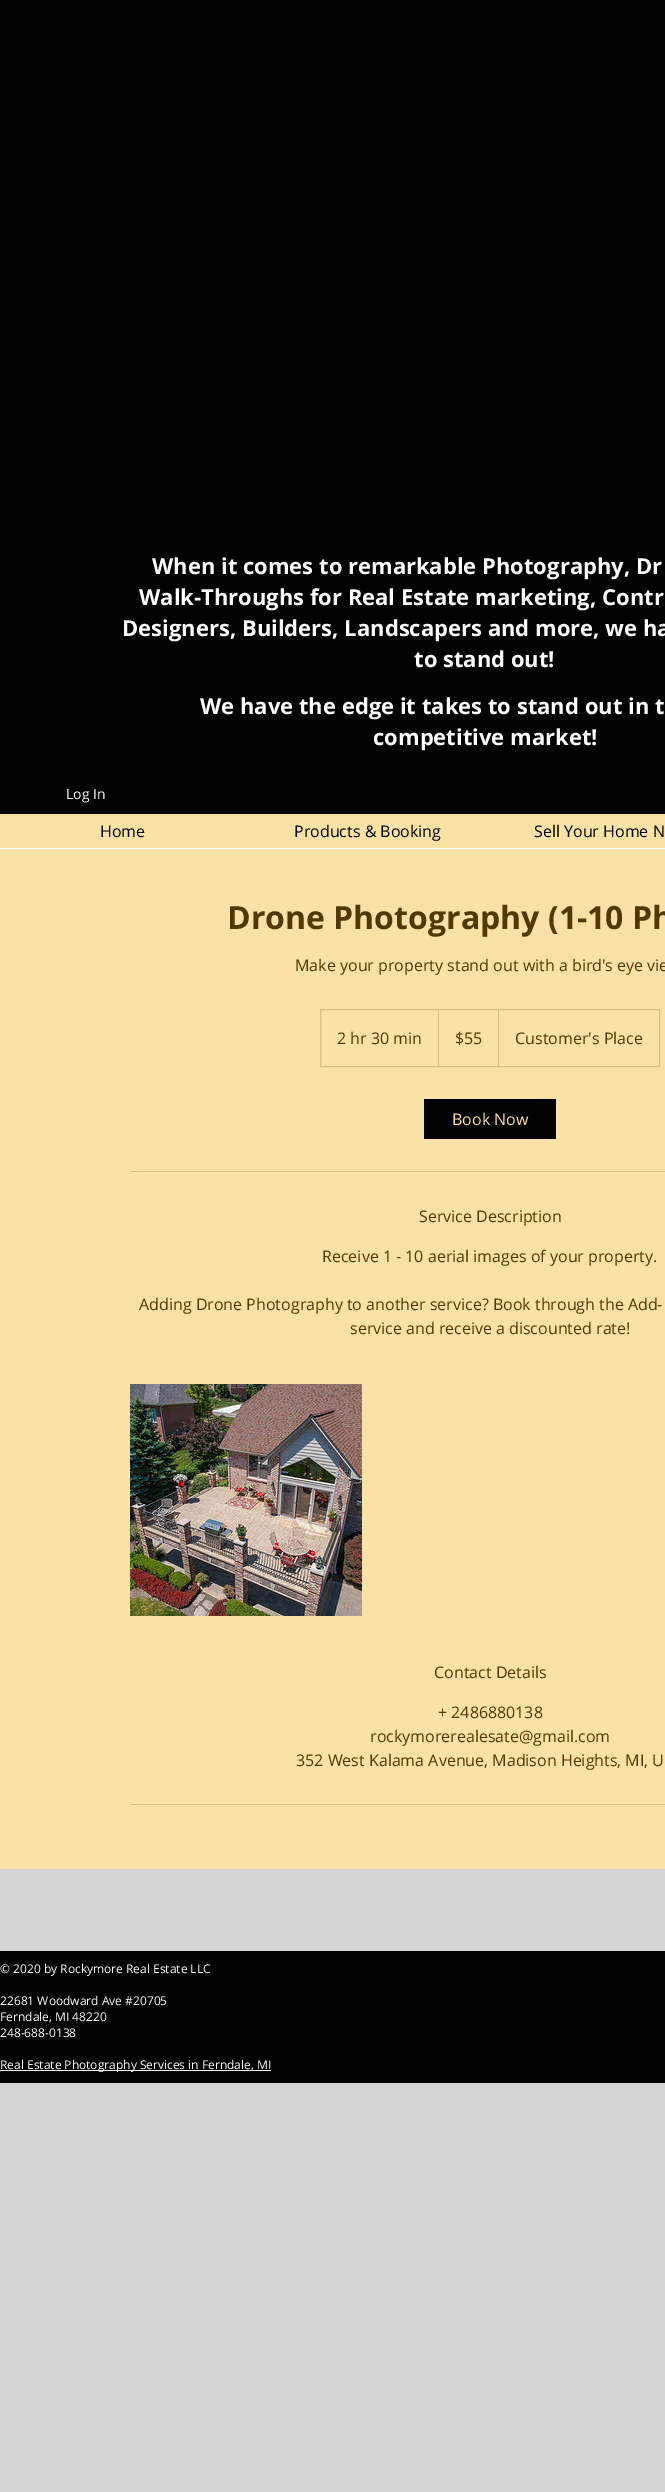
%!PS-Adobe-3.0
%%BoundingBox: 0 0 665 2492
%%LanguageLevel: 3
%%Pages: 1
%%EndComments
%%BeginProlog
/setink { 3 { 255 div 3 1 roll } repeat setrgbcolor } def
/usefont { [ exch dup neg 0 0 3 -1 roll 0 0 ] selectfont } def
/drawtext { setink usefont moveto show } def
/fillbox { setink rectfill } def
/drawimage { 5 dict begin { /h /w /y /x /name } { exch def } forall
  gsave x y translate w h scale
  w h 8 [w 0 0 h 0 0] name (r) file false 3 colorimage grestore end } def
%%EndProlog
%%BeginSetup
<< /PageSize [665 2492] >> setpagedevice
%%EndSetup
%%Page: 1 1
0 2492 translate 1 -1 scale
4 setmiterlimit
0 0 665 2492 213 212 212 fillbox
0 0 665 814 0 0 0 fillbox
(When it comes to remarkable Photography, Dr) 152 574 /OpenSans-Bold 22 254 253 253 drawtext
(Walk-Throughs for Real Estate marketing, Contr) 139 605 /OpenSans-Bold 22 254 253 253 drawtext
(Designers, Builders, Landscapers and more, we ha) 122 636 /OpenSans-Bold 22 254 253 253 drawtext
(to stand out!) 414 667 /OpenSans-Bold 22 254 253 253 drawtext
(We have the edge it takes to stand out in t) 200 714 /OpenSans-Bold 22 254 253 253 drawtext
(competitive market!) 373 745 /OpenSans-Bold 22 254 253 253 drawtext
(Log In) 66 799 /OpenSans-Regular 14 254 253 253 drawtext
0 814 665 34 249 226 166 fillbox
0 848 665 1 254 253 253 fillbox
(Home) 100 837 /OpenSans-Regular 16 0 0 0 drawtext
(Products & Booking) 294 837 /OpenSans-Regular 16 0 0 0 drawtext
(Sell Your Home N) 534 837 /OpenSans-Regular 16 0 0 0 drawtext
0 849 665 1020 249 226 166 fillbox
(Drone Photography \(1-10 Ph) 227 929 /OpenSans-Bold 32 79 57 0 drawtext
(Make your property stand out with a bird's eye vie) 295 971 /OpenSans-Regular 16 79 57 0 drawtext
215 192 133 setink
320.5 1009.5 339 57 rectstroke
(2 hr 30 min) 337 1044 /OpenSans-Regular 16 79 57 0 drawtext
215 192 133 setink
438 1066 moveto 438 1009 lineto 439 1010 lineto 439 1066 lineto closepath fill
($55) 455 1044 /OpenSans-Regular 16 79 57 0 drawtext
215 192 133 setink
498 1066 moveto 498 1009 lineto 499 1010 lineto 499 1066 lineto closepath fill
(Customer's Place) 515 1044 /OpenSans-Regular 16 79 57 0 drawtext
424 1099 132 40 0 0 0 fillbox
(Book Now) 452 1125 /OpenSans-Regular 16 249 226 166 drawtext
130 1171 535 1 215 192 133 fillbox
(Service Description) 419 1222 /OpenSans-Regular 16 79 57 0 drawtext
(Receive 1 - 10 aerial images of your property.) 322 1262 /OpenSans-Regular 16 79 57 0 drawtext
(Adding Drone Photography to another service? Book through the Add-) 139 1310 /OpenSans-Regular 16 79 57 0 drawtext
(service and receive a discounted rate!) 350 1334 /OpenSans-Regular 16 79 57 0 drawtext
(assets/img1.rgb) 130 1384 232 232 drawimage
(Contact Details) 434 1678 /OpenSans-Regular 16 79 57 0 drawtext
(+ 2486880138) 438 1718 /OpenSans-Regular 16 79 57 0 drawtext
(rockymorerealesate@gmail.com) 370 1742 /OpenSans-Regular 16 79 57 0 drawtext
(352 West Kalama Avenue, Madison Heights, MI, U) 296 1766 /OpenSans-Regular 16 79 57 0 drawtext
130 1804 535 1 215 192 133 fillbox
0 1951 665 132 0 0 0 fillbox
(© 2020 by Rockymore Real Estate LLC) 0 1973 /OpenSans-Regular 12 254 253 253 drawtext
(22681 Woodward Ave #20705) 0 2005 /OpenSans-Regular 12 254 253 253 drawtext
(Ferndale, MI 48220) 0 2021 /OpenSans-Regular 12 254 253 253 drawtext
(248-688-0138) 0 2037 /OpenSans-Regular 12 254 253 253 drawtext
0 2070 271 1 254 253 253 fillbox
(Real Estate Photography Services in Ferndale, MI) 0 2069 /OpenSans-Regular 12 254 253 253 drawtext
showpage
%%EOF
